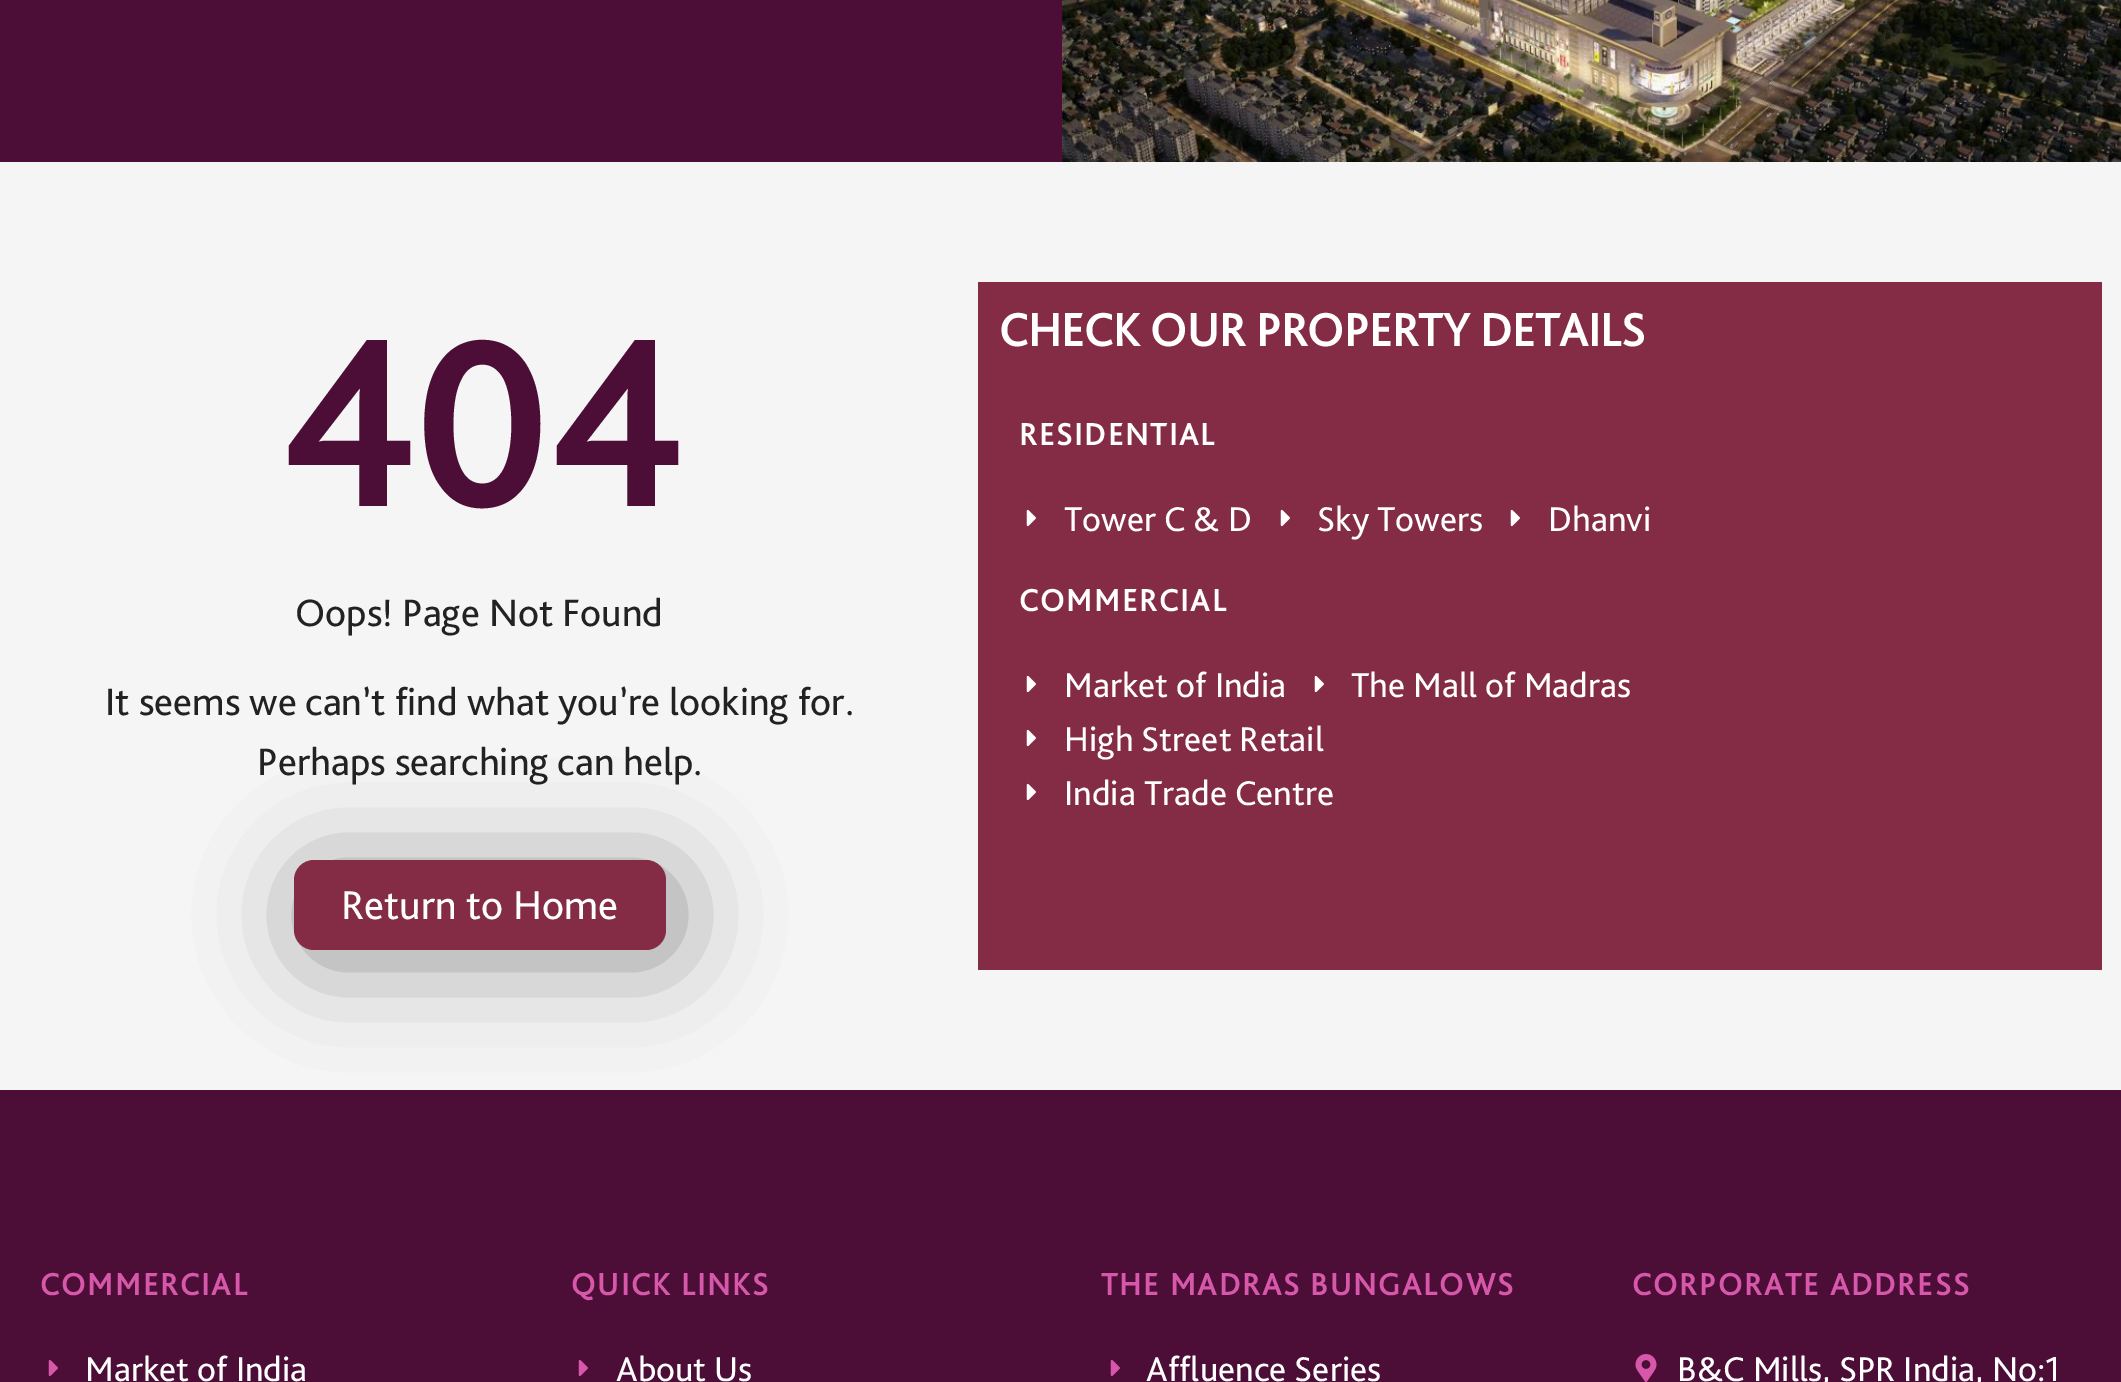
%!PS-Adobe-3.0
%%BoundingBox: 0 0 2121 1382
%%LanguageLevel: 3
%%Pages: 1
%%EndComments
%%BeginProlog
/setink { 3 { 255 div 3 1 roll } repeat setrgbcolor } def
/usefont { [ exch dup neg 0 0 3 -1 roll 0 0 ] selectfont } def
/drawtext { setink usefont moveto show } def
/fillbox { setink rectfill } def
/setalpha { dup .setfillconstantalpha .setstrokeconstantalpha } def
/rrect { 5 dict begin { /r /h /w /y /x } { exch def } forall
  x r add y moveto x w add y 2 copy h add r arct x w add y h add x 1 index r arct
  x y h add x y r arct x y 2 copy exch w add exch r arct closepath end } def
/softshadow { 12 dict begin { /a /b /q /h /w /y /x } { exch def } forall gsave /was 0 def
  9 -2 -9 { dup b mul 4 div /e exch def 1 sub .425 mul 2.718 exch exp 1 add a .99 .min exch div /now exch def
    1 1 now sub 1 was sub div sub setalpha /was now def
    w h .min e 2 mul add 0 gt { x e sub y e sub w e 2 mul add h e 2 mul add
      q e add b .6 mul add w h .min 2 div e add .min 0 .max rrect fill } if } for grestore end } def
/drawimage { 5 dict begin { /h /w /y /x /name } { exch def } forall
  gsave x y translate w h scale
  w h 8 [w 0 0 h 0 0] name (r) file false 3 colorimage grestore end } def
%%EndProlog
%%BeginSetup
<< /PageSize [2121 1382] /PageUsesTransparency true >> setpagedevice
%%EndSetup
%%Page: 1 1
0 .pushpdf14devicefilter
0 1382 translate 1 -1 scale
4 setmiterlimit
0 0 2121 1382 76 14 55 fillbox
(assets/img1.rgb) 1062 0 1059 162 drawimage
0 162 2121 928 245 245 245 fillbox
(404) 278 506 /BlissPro-Bold 240 76 14 55 drawtext
(Oops! Page Not Found) 295 626 /BlissPro-Regular 40 34 34 34 drawtext
(It seems we can’t find what you’re looking for.) 105 715 /BlissPro-Regular 40 34 34 34 drawtext
(Perhaps searching can help.) 257 775 /BlissPro-Regular 40 34 34 34 drawtext
0 0 0 setink
304 870 372 90 20 50 0.41 softshadow
132 43 69 setink
294 860 372 90 20 rrect fill
(Return to Home) 341 919 /BlissPro-Regular 42 255 255 255 drawtext
978 282 1124 688 132 43 69 fillbox
(CHECK OUR PROPERTY DETAILS) 999 346 /BlissPro-Bold 48 255 255 255 drawtext
/BlissPro-Bold 32 usefont
1019 445 moveto 2 0 (RESIDENTIAL) ashow
(assets/img2.rgb) 1026 509 10 18 drawimage
(Tower C & D) 1064 531 /BlissPro-Regular 36 255 255 255 drawtext
(assets/img2.rgb) 1280 509 10 18 drawimage
(Sky Towers) 1317 531 /BlissPro-Regular 36 255 255 255 drawtext
(assets/img2.rgb) 1510 509 10 18 drawimage
(Dhanvi) 1548 531 /BlissPro-Regular 36 255 255 255 drawtext
/BlissPro-Bold 32 usefont
1019 611 moveto 2 0 (COMMERCIAL) ashow
(assets/img2.rgb) 1026 675 10 18 drawimage
(Market of India) 1064 697 /BlissPro-Regular 36 255 255 255 drawtext
(assets/img2.rgb) 1314 675 10 18 drawimage
(The Mall of Madras) 1351 697 /BlissPro-Regular 36 255 255 255 drawtext
(assets/img2.rgb) 1026 729 10 18 drawimage
(High Street Retail) 1064 751 /BlissPro-Regular 36 255 255 255 drawtext
(assets/img2.rgb) 1026 783 10 18 drawimage
(India Trade Centre) 1064 805 /BlissPro-Regular 36 255 255 255 drawtext
/BlissPro-Bold 32 usefont
215 87 171 setink
40 1295 moveto 2 0 (COMMERCIAL) ashow
(assets/img3.rgb) 48 1359 10 18 drawimage
(Market of India) 85 1381 /BlissPro-Regular 36 255 255 255 drawtext
/BlissPro-Bold 32 usefont
215 87 171 setink
571 1295 moveto 2 0 (QUICK LINKS) ashow
(assets/img3.rgb) 578 1359 10 18 drawimage
(About Us) 616 1381 /BlissPro-Regular 36 255 255 255 drawtext
/BlissPro-Bold 32 usefont
215 87 171 setink
1101 1295 moveto 2 0 (THE MADRAS BUNGALOWS) ashow
(assets/img3.rgb) 1110 1359 10 18 drawimage
(Affluence Series) 1146 1381 /BlissPro-Regular 36 255 255 255 drawtext
/BlissPro-Bold 32 usefont
215 87 171 setink
1632 1295 moveto 2 0 (CORPORATE ADDRESS) ashow
(assets/img4.rgb) 1635 1354 22 28 drawimage
(B&C Mills, SPR India, No:1) 1677 1381 /BlissPro-Regular 36 255 255 255 drawtext
.poppdf14devicefilter showpage
%%EOF
